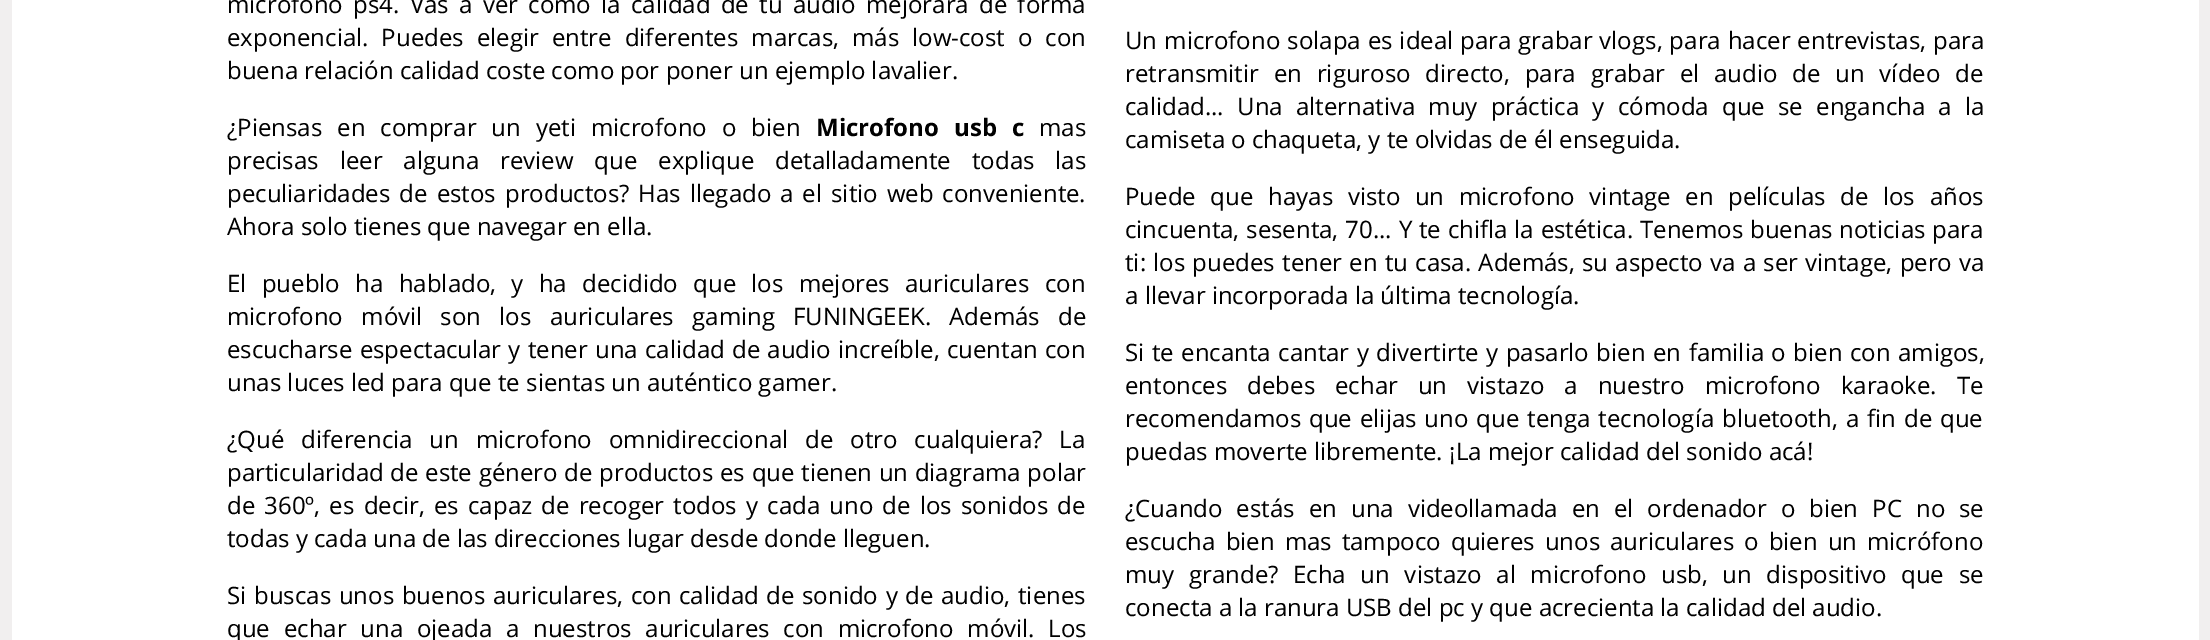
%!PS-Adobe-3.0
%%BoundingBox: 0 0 2210 640
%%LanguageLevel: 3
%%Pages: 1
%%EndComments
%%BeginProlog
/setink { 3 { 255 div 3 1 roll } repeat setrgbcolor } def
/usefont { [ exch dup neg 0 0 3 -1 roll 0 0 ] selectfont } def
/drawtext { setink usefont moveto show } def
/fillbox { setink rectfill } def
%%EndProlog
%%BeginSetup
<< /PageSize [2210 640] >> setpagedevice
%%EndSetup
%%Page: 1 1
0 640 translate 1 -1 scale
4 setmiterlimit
0 0 2210 640 241 239 239 fillbox
12 0 2187 640 255 255 255 fillbox
/OpenSans-Regular 24 usefont
0 0 0 setink
227 13 moveto 4 0 32 (microfono ps4. Vas a ver como la calidad de tu audio mejorará de forma) widthshow
227 46 moveto 6.75 0 32 (exponencial. Puedes elegir entre diferentes marcas, más low-cost o con) widthshow
(buena relación calidad coste como por poner un ejemplo lavalier.) 227 79 /OpenSans-Regular 24 0 0 0 drawtext
1125 49 moveto 0.75 0 32 (Un microfono solapa es ideal para grabar vlogs, para hacer entrevistas, para) widthshow
1125 82 moveto 8.6 0 32 (retransmitir en riguroso directo, para grabar el audio de un vídeo de) widthshow
1125 115 moveto 7 0 32 (calidad... Una alternativa muy práctica y cómoda que se engancha a la) widthshow
(camiseta o chaqueta, y te olvidas de él enseguida.) 1125 148 /OpenSans-Regular 24 0 0 0 drawtext
227 136 moveto 8.75 0 32 (¿Piensas en comprar un yeti microfono o bien) widthshow
/OpenSans-Bold 24 usefont
816 136 moveto 8.75 0 32 (Microfono usb c) widthshow
(mas) 1039 136 /OpenSans-Regular 24 0 0 0 drawtext
227 169 moveto 14.75 0 32 (precisas leer alguna review que explique detalladamente todas las) widthshow
227 202 moveto 2.75 0 32 (peculiaridades de estos productos? Has llegado a el sitio web conveniente.) widthshow
(Ahora solo tienes que navegar en ella.) 227 235 /OpenSans-Regular 24 0 0 0 drawtext
1125 205 moveto 8.4 0 32 (Puede que hayas visto un microfono vintage en películas de los años) widthshow
1125 238 moveto 0.6 0 32 (cincuenta, sesenta, 70... Y te chifla la estética. Tenemos buenas noticias para) widthshow
1125 271 moveto 1 0 32 (ti: los puedes tener en tu casa. Además, su aspecto va a ser vintage, pero va) widthshow
(a llevar incorporada la última tecnología.) 1125 304 /OpenSans-Regular 24 0 0 0 drawtext
227 292 moveto 9.1 0 32 (El pueblo ha hablado, y ha decidido que los mejores auriculares con) widthshow
227 325 moveto 12 0 32 (microfono móvil son los auriculares gaming FUNINGEEK. Además de) widthshow
227 358 moveto 1 0 32 (escucharse espectacular y tener una calidad de audio increíble, cuentan con) widthshow
(unas luces led para que te sientas un auténtico gamer.) 227 391 /OpenSans-Regular 24 0 0 0 drawtext
1125 361 moveto 1.25 0 32 (Si te encanta cantar y divertirte y pasarlo bien en familia o bien con amigos,) widthshow
1125 394 moveto 13.75 0 32 (entonces debes echar un vistazo a nuestro microfono karaoke. Te) widthshow
1125 427 moveto 1.75 0 32 (recomendamos que elijas uno que tenga tecnología bluetooth, a fin de que) widthshow
(puedas moverte libremente. ¡La mejor calidad del sonido acá!) 1125 460 /OpenSans-Regular 24 0 0 0 drawtext
227 448 moveto 10.75 0 32 (¿Qué diferencia un microfono omnidireccional de otro cualquiera? La) widthshow
227 481 moveto 0.4 0 32 (particularidad de este género de productos es que tienen un diagrama polar) widthshow
227 514 moveto 2.9 0 32 (de 360º, es decir, es capaz de recoger todos y cada uno de los sonidos de) widthshow
(todas y cada una de las direcciones lugar desde donde lleguen.) 227 547 /OpenSans-Regular 24 0 0 0 drawtext
1125 517 moveto 7.75 0 32 (¿Cuando estás en una videollamada en el ordenador o bien PC no se) widthshow
1125 550 moveto 3.75 0 32 (escucha bien mas tampoco quieres unos auriculares o bien un micrófono) widthshow
1125 583 moveto 8.4 0 32 (muy grande? Echa un vistazo al microfono usb, un dispositivo que se) widthshow
(conecta a la ranura USB del pc y que acrecienta la calidad del audio.) 1125 616 /OpenSans-Regular 24 0 0 0 drawtext
227 604 moveto 1.4 0 32 (Si buscas unos buenos auriculares, con calidad de sonido y de audio, tienes) widthshow
227 637 moveto 7.5 0 32 (que echar una ojeada a nuestros auriculares con microfono móvil. Los) widthshow
showpage
%%EOF
